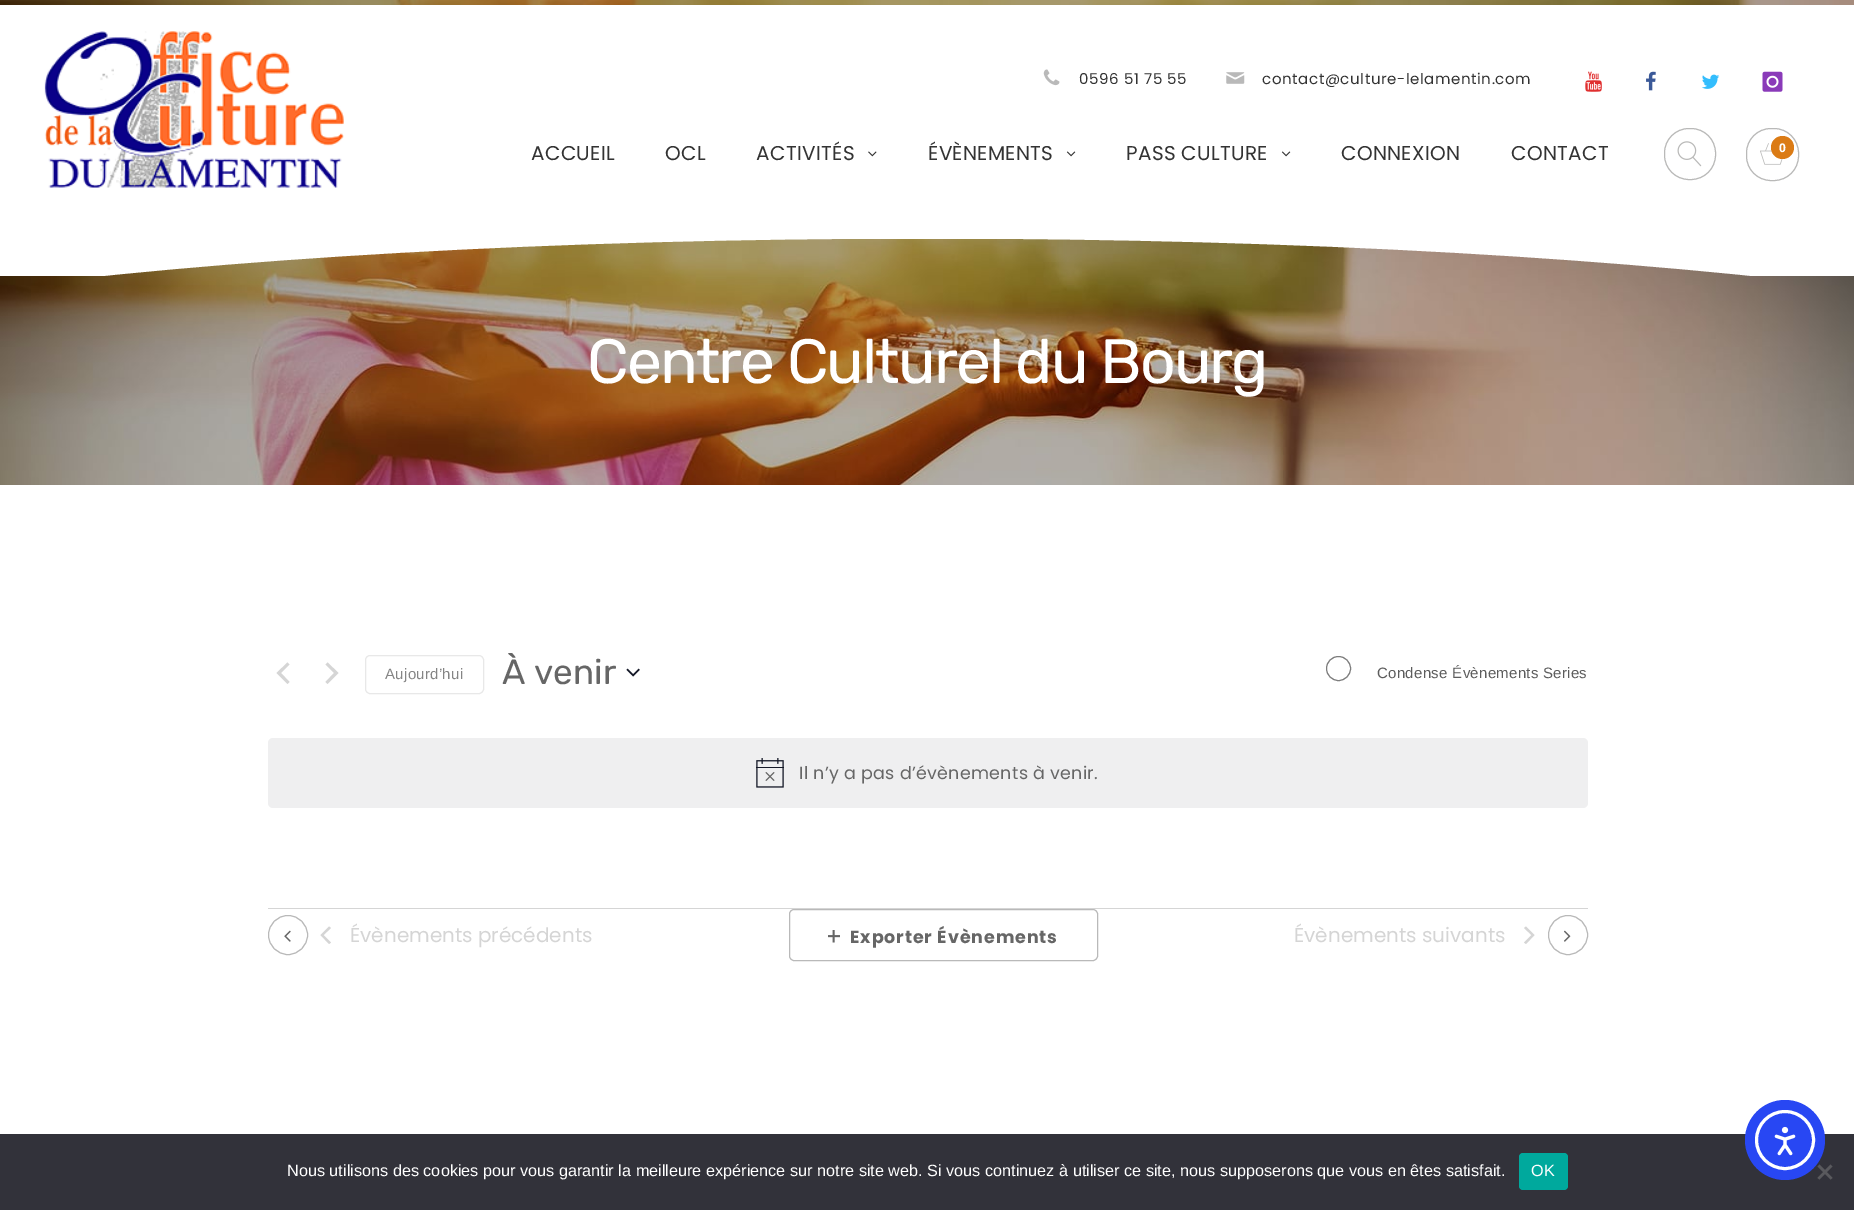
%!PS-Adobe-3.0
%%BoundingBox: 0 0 1854 1210
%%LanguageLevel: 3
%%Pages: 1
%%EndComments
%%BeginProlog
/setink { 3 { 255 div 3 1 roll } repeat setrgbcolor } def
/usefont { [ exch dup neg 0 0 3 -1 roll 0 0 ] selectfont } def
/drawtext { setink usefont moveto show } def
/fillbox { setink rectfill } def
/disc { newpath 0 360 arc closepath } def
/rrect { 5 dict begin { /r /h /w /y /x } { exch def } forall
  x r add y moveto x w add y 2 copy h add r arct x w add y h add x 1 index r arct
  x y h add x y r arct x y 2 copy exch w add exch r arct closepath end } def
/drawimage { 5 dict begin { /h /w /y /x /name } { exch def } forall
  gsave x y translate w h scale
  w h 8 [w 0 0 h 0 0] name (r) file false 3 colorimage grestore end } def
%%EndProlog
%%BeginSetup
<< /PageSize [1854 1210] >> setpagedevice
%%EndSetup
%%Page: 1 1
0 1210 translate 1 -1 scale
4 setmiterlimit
0 0 1854 1210 255 255 255 fillbox
(assets/img1.rgb) 0 0 1854 5 drawimage
(assets/img2.rgb) 44 31 300 157 drawimage
(assets/img3.rgb) 1043 69 17 17 drawimage
/Poppins-Regular 15 usefont
51 51 51 setink
1079 84 moveto 0.6 0 (0596 51 75 55) ashow
(assets/img4.rgb) 1226 72 19 12 drawimage
1262 84 moveto 0.6 0 (contact@culture-lelamentin.com) ashow
(assets/img5.rgb) 1585 71 17 21 drawimage
(assets/img6.rgb) 1646 71 10 20 drawimage
(assets/img7.rgb) 1702 74 18 15 drawimage
(assets/img8.rgb) 1762 71 21 21 drawimage
/Poppins-Regular 20 usefont
531 160 moveto 0.3 0 (ACCUEIL) ashow
665 160 moveto 0.3 0 (OCL) ashow
756 160 moveto 0.3 0 (ACTIVITÉS) ashow
(assets/img9.rgb) 868 151 9 6 drawimage
928 160 moveto 0.3 0 (ÉVÈNEMENTS) ashow
(assets/img10.rgb) 1066 151 10 6 drawimage
1126 160 moveto 0.3 0 (PASS CULTURE) ashow
(assets/img10.rgb) 1281 151 10 6 drawimage
1341 160 moveto 0.3 0 (CONNEXION) ashow
1511 160 moveto 0.3 0 (CONTACT) ashow
185 185 184 setink
1664.5 128.5 51 51 24.5 rrect stroke
(assets/img11.rgb) 1677 141 25 26 drawimage
1746.5 128.5 52 52 24.5 rrect stroke
(assets/img12.rgb) 1760 143 23 22 drawimage
219 123 21 setink
1782.5 147.5 11.5 disc fill
(0) 1779 152 /OpenSans-Bold 12 255 255 255 drawtext
(assets/img13.rgb) 0 239 1854 246 drawimage
gsave
0 239 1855 37 rectclip
125 setlinewidth
927.5 176 moveto 1679.5 176 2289 257.5 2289 357.5 curveto 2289 457.5 1679.5 539 927.5 539 curveto 175.5 539 -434 457.5 -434 357.5 curveto -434 257.5 175.5 176 927.5 176 curveto closepath stroke
grestore
/Rubik-Regular 62.5 usefont
587 383 moveto -1.9 0 (Centre Culturel du Bourg) ashow
213 213 213 setink
289.5 682 moveto 287.5 684 lineto 276.5 673 lineto 287.5 662.5 lineto 289.5 664.5 lineto 281 673 lineto closepath 325.5 664.5 moveto 327.5 662.5 lineto 338.5 673 lineto 327.5 684 lineto 325.5 682 lineto 334 673 lineto closepath fill
232 232 232 setink
365.5 655.5 118 38 4.5 rrect stroke
/LiberationSans-Regular 15 usefont
133 133 133 setink
385 679 moveto 0.3 0 (Aujourd’hui) ashow
(À venir) 502 684 /Rubik-Regular 35 102 102 102 drawtext
(assets/img14.rgb) 626 668 14 9 drawimage
125 125 125 setink
1338.5 668.5 12 disc stroke
/LiberationSans-Regular 15 usefont
93 93 93 setink
1377 678 moveto 0.3 0 (Condense Évènements Series) ashow
239 239 240 setink
268 738 1320 70 5 rrect fill
(assets/img15.rgb) 756 758 28 30 drawimage
/Poppins-Regular 17.5 usefont
102 102 102 setink
799 779 moveto 0.3 0 (Il n’y a pas d’évènements à venir.) ashow
268 908 1320 1 213 213 213 fillbox
185 185 185 setink
288 935 19.5 disc stroke
(assets/img16.rgb) 284 930 7 12 drawimage
213 213 213 setink
331 942.5 moveto 329 944 lineto 320.5 935 lineto 329 926.5 lineto 331 928 lineto 323.5 935 lineto closepath fill
(Évènements précédents) 350 942 /Poppins-Regular 20 213 213 213 drawtext
185 185 185 setink
789.5 909.5 308 51 4.5 rrect stroke
(assets/img17.rgb) 828 930 12 13 drawimage
/Poppins-Bold 17.5 usefont
102 102 102 setink
850 943 moveto 0.9 0 (Exporter Évènements) ashow
(Évènements suivants) 1294 942 /Poppins-Regular 20 213 213 213 drawtext
1524 928 moveto 1526 926.5 lineto 1534.5 935 lineto 1526 944 lineto 1524 942.5 lineto 1531.5 935 lineto closepath fill
185 185 185 setink
1568 935 19.5 disc stroke
(assets/img18.rgb) 1564 930 7 12 drawimage
0 1134 1854 76 50 50 58 fillbox
(Nous utilisons des cookies pour vous garantir la meilleure expérience sur notre site web. Si vous continuez à utiliser ce site, nous supposerons que vous en êtes satisfait.) 287 1176 /LiberationSans-Regular 16.25 255 255 255 drawtext
0 169 157 setink
1519 1153 49 37 4 rrect fill
255 255 255 setink
1531 1176 moveto 0.3 0 (OK) ashow
89 89 93 setink
1830.5 1164.5 moveto 1832.5 1166.5 lineto 1819.5 1179.5 lineto 1817.5 1178 lineto closepath fill
1817.5 1166.5 moveto 1819.5 1164.5 lineto 1832.5 1178 lineto 1830.5 1179.5 lineto closepath fill
40 71 243 setink
1785 1140 40 disc fill
255 255 255 setink
3 setlinewidth
1785 1140 28.5 disc stroke
(assets/img19.rgb) 1774 1126 22 30 drawimage
showpage
%%EOF
